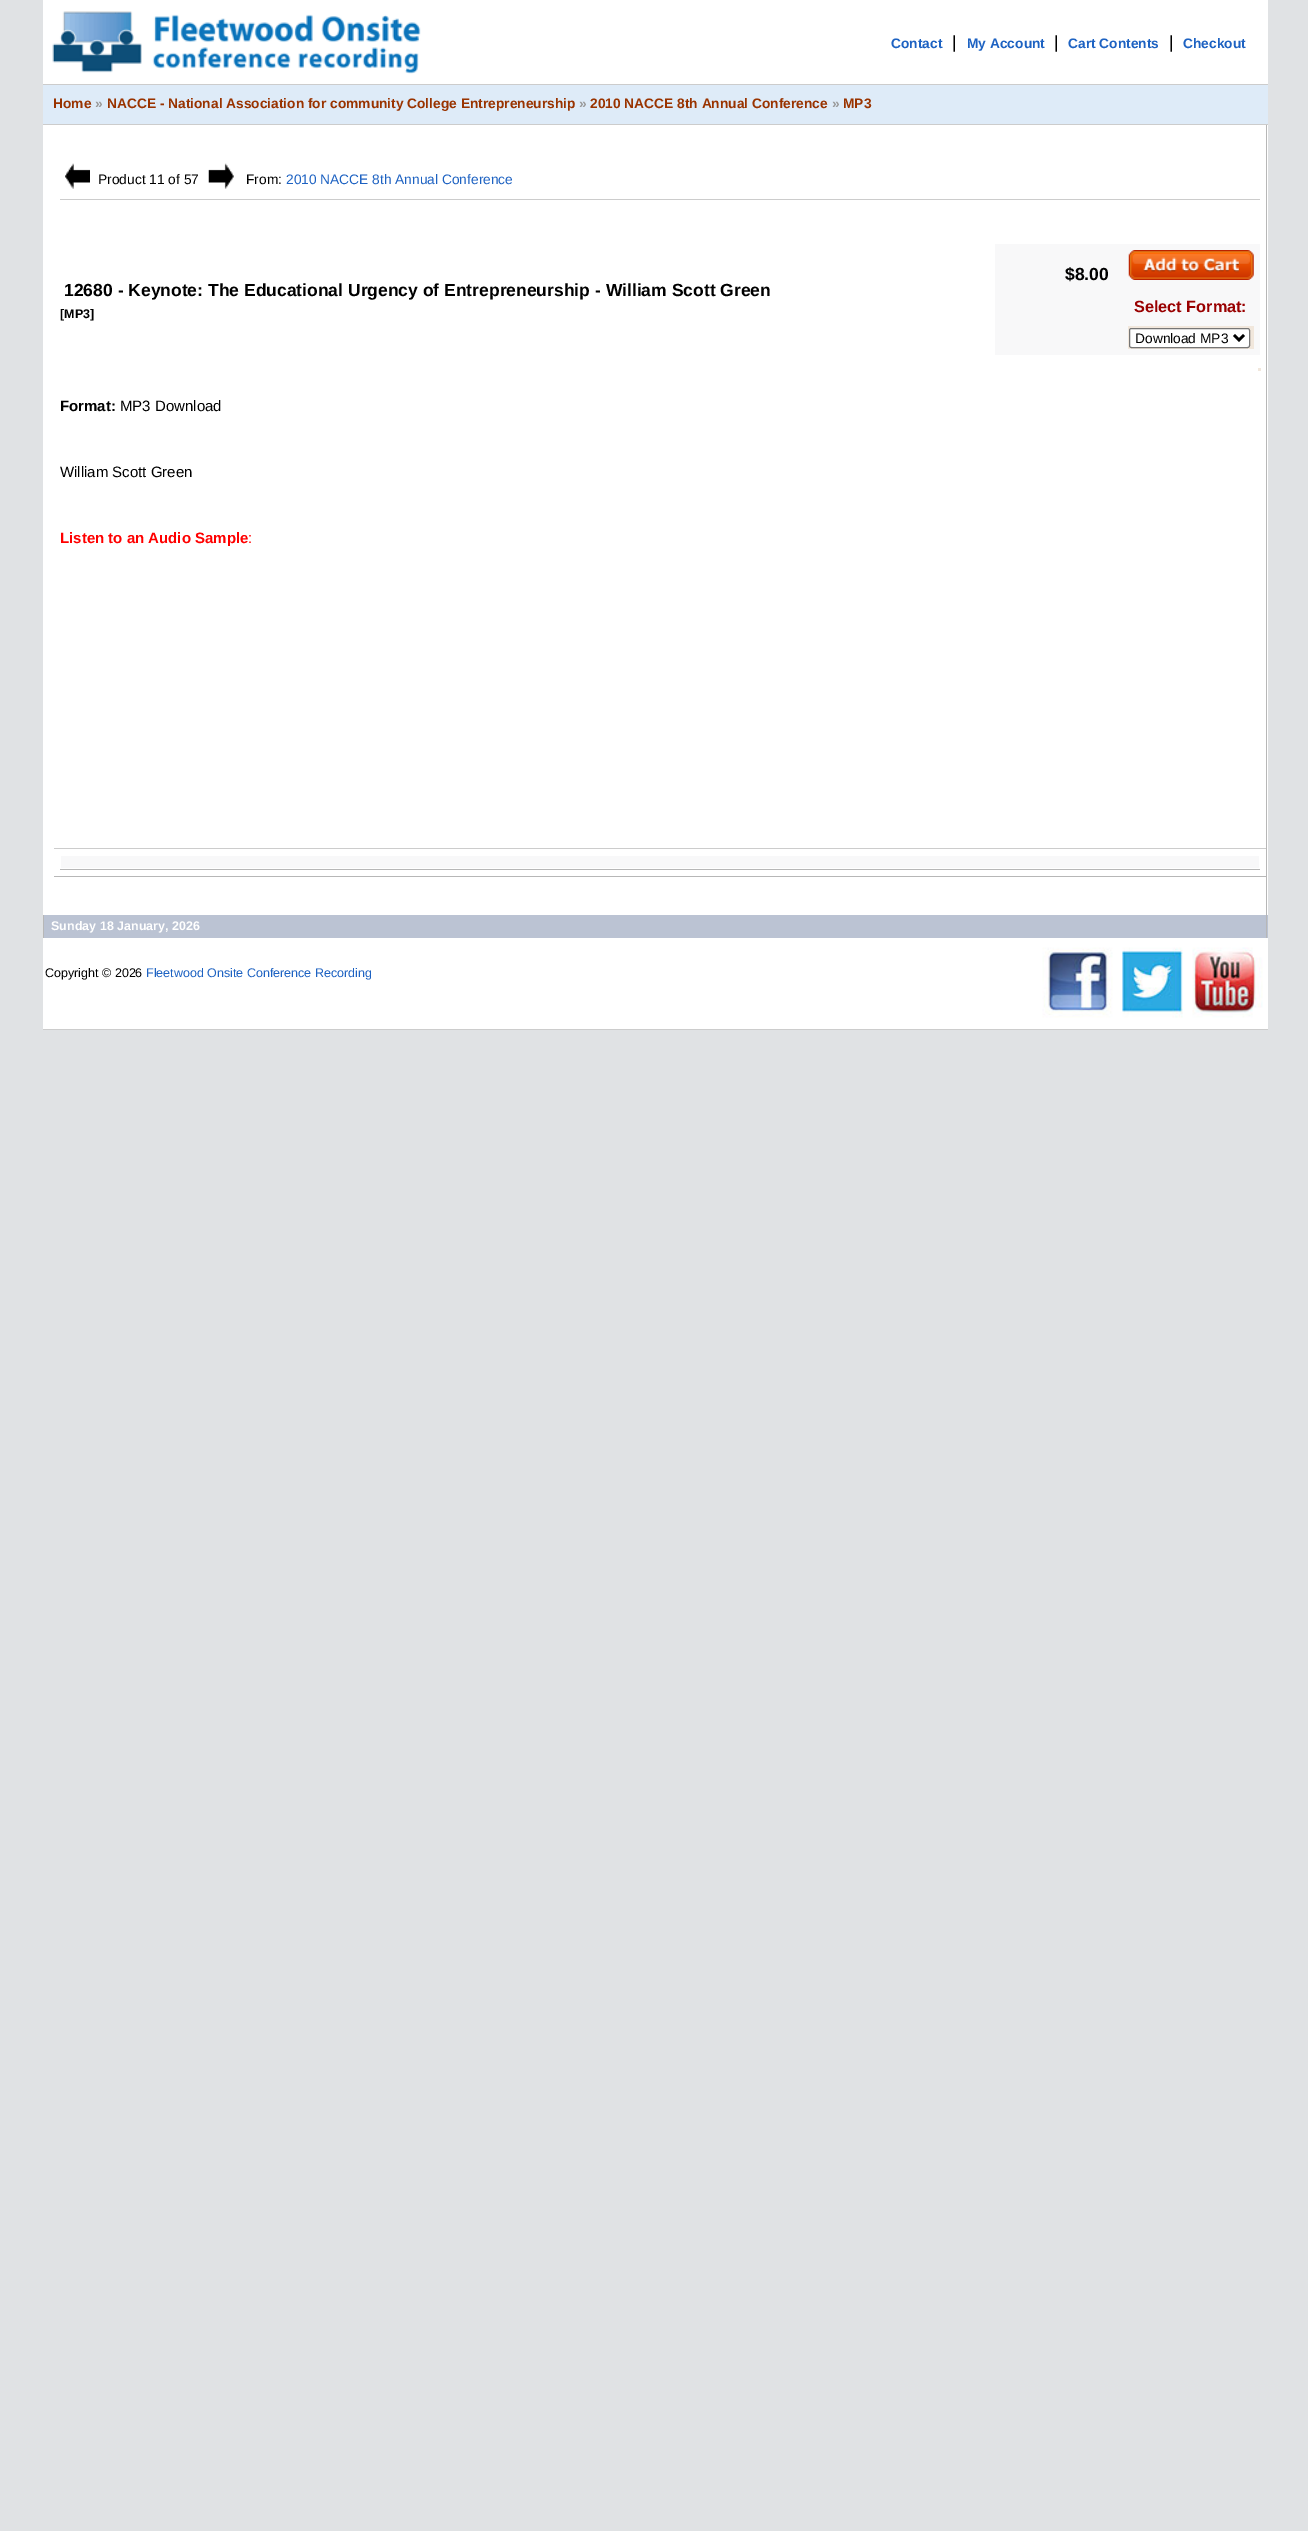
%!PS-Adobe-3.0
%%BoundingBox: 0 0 1308 2531
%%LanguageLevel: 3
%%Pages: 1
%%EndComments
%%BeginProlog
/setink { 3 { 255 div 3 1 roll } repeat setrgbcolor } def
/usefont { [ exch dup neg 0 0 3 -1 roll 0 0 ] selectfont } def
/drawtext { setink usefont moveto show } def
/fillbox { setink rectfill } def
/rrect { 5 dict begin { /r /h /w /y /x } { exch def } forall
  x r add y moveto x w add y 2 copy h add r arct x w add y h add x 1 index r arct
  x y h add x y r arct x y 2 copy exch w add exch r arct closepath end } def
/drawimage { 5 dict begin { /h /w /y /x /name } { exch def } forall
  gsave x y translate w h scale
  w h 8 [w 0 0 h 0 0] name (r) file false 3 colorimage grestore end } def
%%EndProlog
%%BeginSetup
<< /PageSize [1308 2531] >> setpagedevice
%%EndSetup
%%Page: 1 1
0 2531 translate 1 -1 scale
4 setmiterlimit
0 0 1308 2531 224 226 228 fillbox
43 0 1225 1029 255 255 255 fillbox
(assets/img1.rgb) 52 11 369 63 drawimage
(Contact) 891 48 /LiberationSans-Bold 13.75 29 98 194 drawtext
(|) 952 48 /LiberationSans-Regular 17.5 0 0 0 drawtext
(My Account) 967 48 /LiberationSans-Bold 13.75 29 98 194 drawtext
(|) 1054 48 /LiberationSans-Regular 17.5 0 0 0 drawtext
(Cart Contents) 1068 48 /LiberationSans-Bold 13.75 29 98 194 drawtext
(|) 1169 48 /LiberationSans-Regular 17.5 0 0 0 drawtext
(Checkout) 1183 48 /LiberationSans-Bold 13.75 29 98 194 drawtext
43 85 1225 39 222 235 248 fillbox
43 84 1225 1 204 204 204 fillbox
43 124 1225 1 204 204 204 fillbox
(Home) 53 108 /LiberationSans-Bold 13.75 153 51 0 drawtext
(») 95 108 /LiberationSans-Bold 13.75 153 153 153 drawtext
(NACCE - National Association for community College Entrepreneurship) 107 108 /LiberationSans-Bold 13.75 153 51 0 drawtext
(») 579 108 /LiberationSans-Bold 13.75 153 153 153 drawtext
(2010 NACCE 8th Annual Conference) 590 108 /LiberationSans-Bold 13.75 153 51 0 drawtext
(») 832 108 /LiberationSans-Bold 13.75 153 153 153 drawtext
(MP3) 843 108 /LiberationSans-Bold 13.75 153 51 0 drawtext
1266 125 1 790 183 183 183 fillbox
60 199 1200 1 204 204 204 fillbox
(assets/img2.rgb) 65 163 25 26 drawimage
(Product 11 of 57) 98 184 /LiberationSans-Regular 13.75 0 0 0 drawtext
(assets/img3.rgb) 208 163 26 26 drawimage
(From:) 246 184 /LiberationSans-Regular 13.75 0 0 0 drawtext
(2010 NACCE 8th Annual Conference) 286 184 /LiberationSans-Regular 13.75 29 98 194 drawtext
(12680 - Keynote: The Educational Urgency of Entrepreneurship - William Scott Green) 64 296 /LiberationSans-Bold 17.5 0 0 0 drawtext
([MP3]) 60 318 /LiberationSans-Bold 12.5 0 0 0 drawtext
995 244 265 111 248 248 249 fillbox
($8.00) 1065 280 /LiberationSans-Bold 17.5 0 0 0 drawtext
(assets/img4.rgb) 1128 250 126 30 drawimage
1128 326 126 23 241 231 220 fillbox
(Select Format:) 1134 312 /LiberationSans-Bold 16.25 153 0 0 drawtext
255 255 255 setink
1129.5 328.5 120 19 2 rrect gsave fill grestore
118 118 118 setink
stroke
0 0 0 setink
2.5 setlinewidth
1234 335 moveto 1239 340 lineto 1244 335 lineto stroke
(Download MP3) 1135 343 /LiberationSans-Regular 13.75 0 0 0 drawtext
1258 368 3 3 241 231 220 fillbox
(Format:) 60 411 /LiberationSans-Bold 15 0 0 0 drawtext
(MP3 Download) 120 411 /LiberationSans-Regular 15 0 0 0 drawtext
(William Scott Green) 60 477 /LiberationSans-Regular 15 0 0 0 drawtext
(Listen to an Audio Sample) 60 543 /LiberationSans-Bold 15 255 0 0 drawtext
(:) 248 543 /LiberationSans-Regular 15 255 0 0 drawtext
54 848 1212 1 204 204 204 fillbox
54 876 1212 1 183 183 183 fillbox
60 869 1200 1 183 183 183 fillbox
61 856 1198 12 248 248 249 fillbox
44 915 1224 23 187 195 211 fillbox
1266 915 1 23 183 183 183 fillbox
43 915 1 23 183 183 183 fillbox
(Sunday 18 January, 2026) 51 930 /LiberationSans-Bold 12.5 255 255 255 drawtext
43 1029 1225 1 204 204 204 fillbox
(Copyright © 2026) 45 977 /LiberationSans-Regular 12.5 0 0 0 drawtext
(Fleetwood Onsite Conference Recording) 146 977 /LiberationSans-Regular 12.5 29 98 194 drawtext
(assets/img5.rgb) 1042 947 221 71 drawimage
showpage
%%EOF
